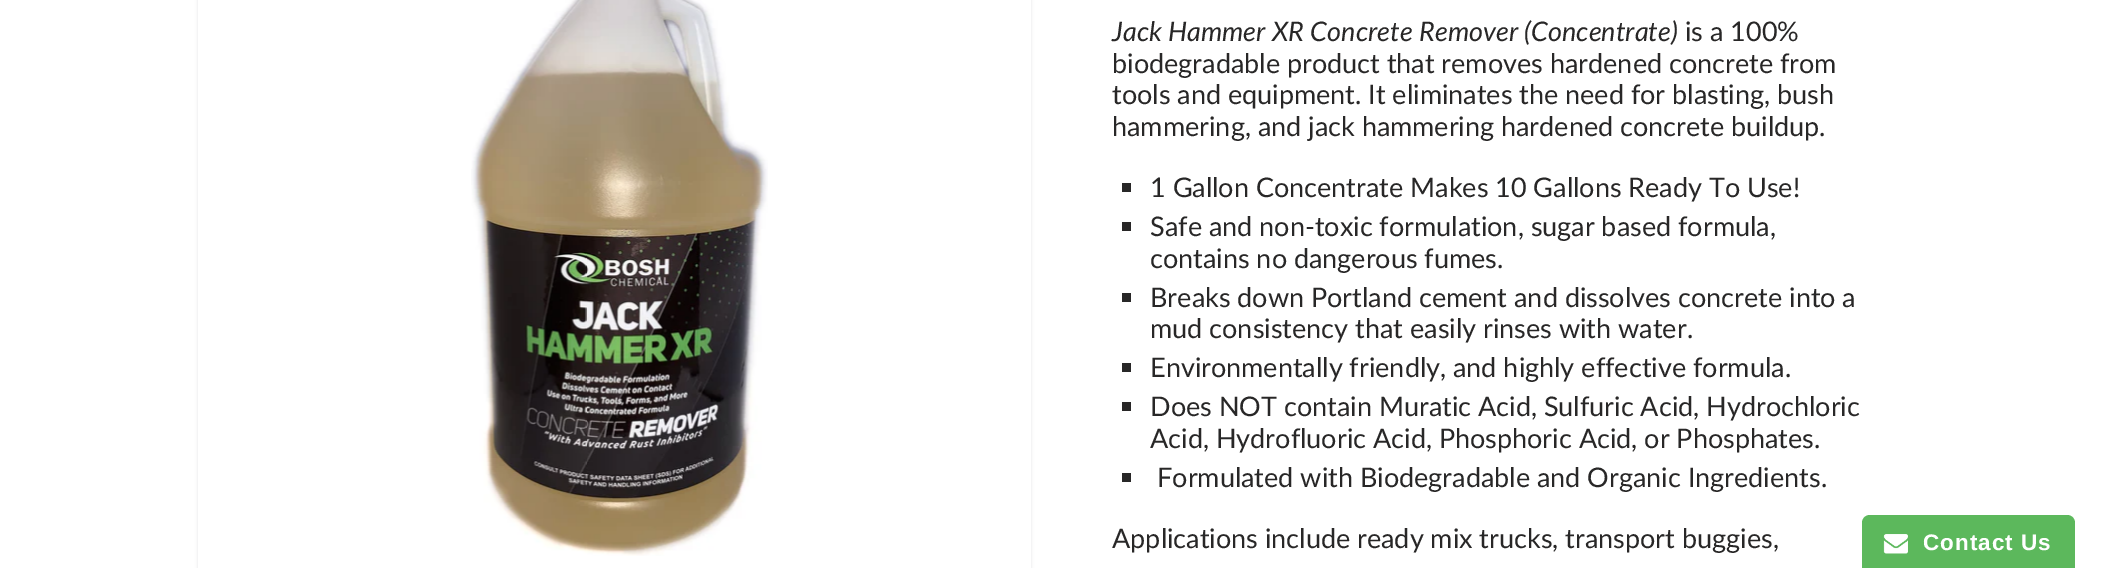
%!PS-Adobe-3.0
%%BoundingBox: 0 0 2104 568
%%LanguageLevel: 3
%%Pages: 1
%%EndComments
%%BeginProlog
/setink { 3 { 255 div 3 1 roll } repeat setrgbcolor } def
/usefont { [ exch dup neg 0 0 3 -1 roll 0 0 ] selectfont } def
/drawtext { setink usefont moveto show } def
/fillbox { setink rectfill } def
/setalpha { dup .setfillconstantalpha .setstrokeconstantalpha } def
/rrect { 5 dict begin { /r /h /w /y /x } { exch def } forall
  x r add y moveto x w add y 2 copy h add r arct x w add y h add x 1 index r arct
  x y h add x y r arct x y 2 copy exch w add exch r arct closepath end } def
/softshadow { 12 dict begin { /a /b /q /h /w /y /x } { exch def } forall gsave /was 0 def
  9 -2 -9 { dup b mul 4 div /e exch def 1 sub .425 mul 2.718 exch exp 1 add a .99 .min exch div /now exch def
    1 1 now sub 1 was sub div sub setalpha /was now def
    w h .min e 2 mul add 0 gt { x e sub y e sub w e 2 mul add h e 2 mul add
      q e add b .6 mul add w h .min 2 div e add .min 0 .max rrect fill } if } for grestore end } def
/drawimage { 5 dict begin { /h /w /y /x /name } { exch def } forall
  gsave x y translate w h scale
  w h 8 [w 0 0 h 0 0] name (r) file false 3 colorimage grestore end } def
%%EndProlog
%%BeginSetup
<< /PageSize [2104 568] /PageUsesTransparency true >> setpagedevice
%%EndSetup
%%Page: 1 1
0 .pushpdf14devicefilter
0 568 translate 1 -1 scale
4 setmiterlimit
0 0 2104 568 255 255 255 fillbox
11 25 28 setink
198 -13 833 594 8 1.5 0.1 softshadow
198 0 833 568 255 255 255 fillbox
(assets/img1.rgb) 471 0 297 556 drawimage
(Jack Hammer XR Concrete Remover \(Concentrate\)) 1112 41 /Lato-Italic 27 40 39 39 drawtext
(is a 100%) 1685 41 /Lato-Regular 27 40 39 39 drawtext
(biodegradable product that removes hardened concrete from) 1112 73 /Lato-Regular 27 40 39 39 drawtext
(tools and equipment. It eliminates the need for blasting, bush) 1112 104 /Lato-Regular 27 40 39 39 drawtext
(hammering, and jack hammering hardened concrete buildup.) 1112 136 /Lato-Regular 27 40 39 39 drawtext
1122 183 9 9 40 39 39 fillbox
(1 Gallon Concentrate Makes 10 Gallons Ready To Use!) 1150 197 /Lato-Regular 27 40 39 39 drawtext
1122 222 9 9 40 39 39 fillbox
(Safe and non-toxic formulation, sugar based formula,) 1150 236 /Lato-Regular 27 40 39 39 drawtext
(contains no dangerous fumes.) 1150 268 /Lato-Regular 27 40 39 39 drawtext
1122 293 9 9 40 39 39 fillbox
(Breaks down Portland cement and dissolves concrete into a) 1150 307 /Lato-Regular 27 40 39 39 drawtext
(mud consistency that easily rinses with water.) 1150 338 /Lato-Regular 27 40 39 39 drawtext
1122 363 9 9 40 39 39 fillbox
(Environmentally friendly, and highly effective formula.) 1150 377 /Lato-Regular 27 40 39 39 drawtext
1122 402 9 9 40 39 39 fillbox
(Does NOT contain Muratic Acid, Sulfuric Acid, Hydrochloric) 1150 416 /Lato-Regular 27 40 39 39 drawtext
(Acid, Hydrofluoric Acid, Phosphoric Acid, or Phosphates.) 1150 448 /Lato-Regular 27 40 39 39 drawtext
1122 473 9 9 40 39 39 fillbox
(Formulated with Biodegradable and Organic Ingredients.) 1157 487 /Lato-Regular 27 40 39 39 drawtext
(Applications include ready mix trucks, transport buggies,) 1112 548 /Lato-Regular 27 40 39 39 drawtext
92 184 92 setink
1870 515 moveto 2067 515 lineto 2071.5 515 2075 518.5 2075 523 curveto 2075 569 lineto 1862 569 lineto 1862 523 lineto 1862 518.5 1865.5 515 1870 515 curveto closepath fill
(assets/img2.rgb) 1883 534 25 20 drawimage
/LiberationSans-Bold 22.5 usefont
255 255 255 setink
1923 550 moveto 1 0 (Contact Us) ashow
.poppdf14devicefilter showpage
%%EOF
